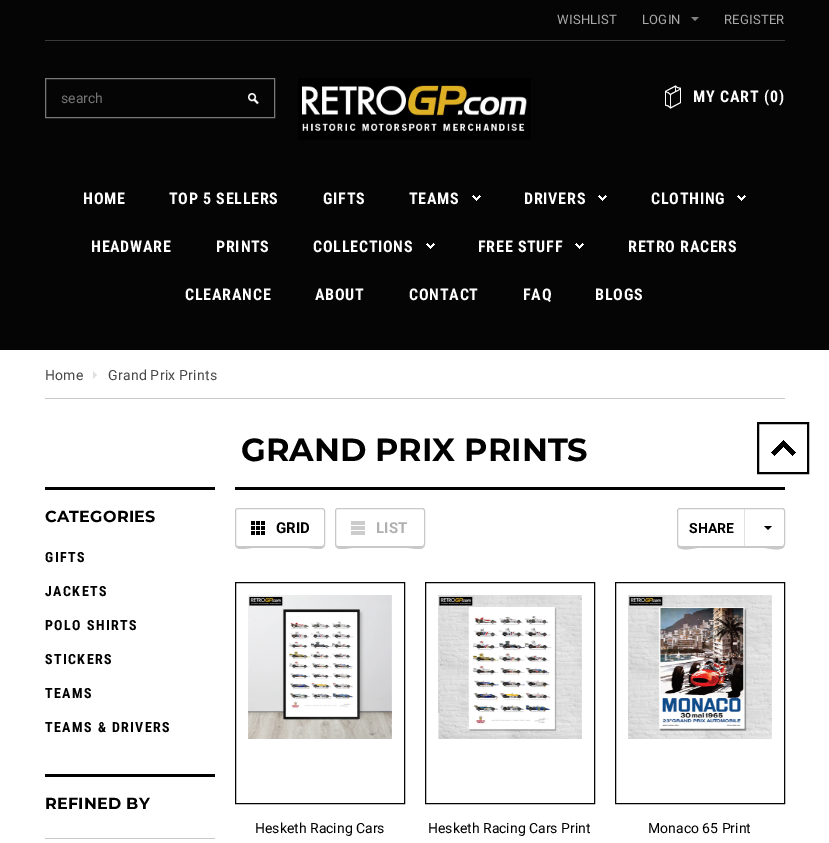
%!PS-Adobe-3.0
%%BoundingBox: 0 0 829 843
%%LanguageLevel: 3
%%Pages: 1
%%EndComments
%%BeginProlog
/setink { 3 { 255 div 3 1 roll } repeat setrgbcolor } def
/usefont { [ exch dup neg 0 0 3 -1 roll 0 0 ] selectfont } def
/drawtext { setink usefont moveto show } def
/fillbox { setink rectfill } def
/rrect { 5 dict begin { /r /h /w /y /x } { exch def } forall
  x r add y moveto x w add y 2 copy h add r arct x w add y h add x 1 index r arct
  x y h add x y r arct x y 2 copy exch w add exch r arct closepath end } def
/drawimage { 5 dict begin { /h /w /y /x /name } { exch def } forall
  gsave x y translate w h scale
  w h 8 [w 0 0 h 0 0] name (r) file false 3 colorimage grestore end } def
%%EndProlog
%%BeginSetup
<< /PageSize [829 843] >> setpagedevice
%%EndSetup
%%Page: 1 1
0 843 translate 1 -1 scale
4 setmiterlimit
0 0 829 843 255 255 255 fillbox
0 0 829 350 5 5 5 fillbox
45 40 740 1 58 58 58 fillbox
/Roboto-Regular 13 usefont
170 170 170 setink
557 24 moveto 0.25 0 (WISHLIST) ashow
642 24 moveto 0.25 0 (LOGIN) ashow
130 130 130 setink
691 17 moveto 699 17 lineto 695 21 lineto closepath fill
170 170 170 setink
724 24 moveto 0.25 0 (REGISTER) ashow
121 121 121 setink
45.5 78.5 229 39 rectstroke
(search) 61 103 /Roboto-Regular 14 117 117 117 drawtext
(assets/img1.rgb) 248 93 11 12 drawimage
(assets/img2.rgb) 298 78 233 62 drawimage
(assets/img3.rgb) 665 85 16 24 drawimage
/RobotoCondensed-Bold 16 usefont
255 255 255 setink
693 102 moveto 0.75 0 (MY CART) ashow
764 102 moveto 0.75 0 (\(0\)) ashow
83 204 moveto 0.75 0 (HOME) ashow
169 204 moveto 0.75 0 (TOP 5 SELLERS) ashow
323 204 moveto 0.75 0 (GIFTS) ashow
409 204 moveto 0.75 0 (TEAMS) ashow
(assets/img4.rgb) 472 195 9 6 drawimage
524 204 moveto 0.75 0 (DRIVERS) ashow
(assets/img4.rgb) 598 195 9 6 drawimage
651 204 moveto 0.75 0 (CLOTHING) ashow
(assets/img4.rgb) 737 195 9 6 drawimage
91 252 moveto 0.75 0 (HEADWARE) ashow
216 252 moveto 0.75 0 (PRINTS) ashow
313 252 moveto 0.75 0 (COLLECTIONS) ashow
(assets/img4.rgb) 426 243 9 6 drawimage
478 252 moveto 0.75 0 (FREE STUFF) ashow
(assets/img4.rgb) 575 243 9 6 drawimage
628 252 moveto 0.75 0 (RETRO RACERS) ashow
185 300 moveto 0.75 0 (CLEARANCE) ashow
315 300 moveto 0.75 0 (ABOUT) ashow
409 300 moveto 0.75 0 (CONTACT) ashow
523 300 moveto 0.75 0 (FAQ) ashow
595 300 moveto 0.75 0 (BLOGS) ashow
45 398 740 1 200 200 200 fillbox
/Roboto-Regular 14 usefont
72 72 72 setink
45 380 moveto 0.25 0 (Home) ashow
224 224 224 setink
93 379 moveto 93 371 lineto 97 375 lineto closepath fill
72 72 72 setink
108 380 moveto 0.25 0 (Grand Prix Prints) ashow
(GRAND PRIX PRINTS) 241 461 /Montserrat-Bold 32 0 0 0 drawtext
45 487 170 3 0 0 0 fillbox
/Montserrat-Bold 16 usefont
45 522 moveto 0.25 0 (CATEGORIES) ashow
/RobotoCondensed-Bold 14 usefont
45 562 moveto 1.4 0 (GIFTS) ashow
45 596 moveto 1.4 0 (JACKETS) ashow
45 630 moveto 1.4 0 (POLO SHIRTS) ashow
45 664 moveto 1.4 0 (STICKERS) ashow
45 698 moveto 1.4 0 (TEAMS) ashow
45 732 moveto 1.4 0 (TEAMS & DRIVERS) ashow
45 774 170 3 0 0 0 fillbox
/Montserrat-Bold 16 usefont
45 809 moveto 0.25 0 (REFINED BY) ashow
45 838 170 1 200 200 200 fillbox
235 487 550 3 0 0 0 fillbox
200 200 200 setink
235 544 moveto 235 552 248 548 252 548 curveto 308 548 lineto 312 548 325 552 325 544 curveto 325 546 324 547 322 547 curveto 238 547 lineto 236 547 235 546 235 544 curveto closepath fill
(assets/img5.rgb) 251 521 14 14 drawimage
235.5 508.5 89 38 2.5 rrect stroke
(GRID) 276 533 /Roboto-Bold 15 0 0 0 drawtext
200 200 200 setink
335 544 moveto 335 552 348 548 352 548 curveto 408 548 lineto 412 548 425 552 425 544 curveto 425 546 424 547 422 547 curveto 338 547 lineto 336 547 335 546 335 544 curveto closepath fill
(assets/img6.rgb) 351 521 14 14 drawimage
335.5 508.5 89 38 2.5 rrect stroke
(LIST) 376 533 /Roboto-Bold 15 176 176 176 drawtext
200 200 200 setink
677 544 moveto 677 553 695 548 697 548 curveto 765 548 lineto 767 548 785 553 785 544 curveto 785 546 784 547 782 547 curveto 680 547 lineto 678 547 677 546 677 544 curveto closepath fill
677.5 508.5 107 38 2.5 rrect stroke
(SHARE) 689 533 /Roboto-Bold 14 0 0 0 drawtext
744 509 1 37 225 225 225 fillbox
0 0 0 setink
764 526 moveto 772 526 lineto 768 530 lineto closepath fill
5 5 5 setink
235.5 582.5 169 221 rectstroke
(assets/img7.rgb) 248 595 144 144 drawimage
(Hesketh Racing Cars) 255 833 /Roboto-Regular 14 0 0 0 drawtext
5 5 5 setink
425.5 582.5 169 221 rectstroke
(assets/img8.rgb) 438 595 144 144 drawimage
(Hesketh Racing Cars Print) 428 833 /Roboto-Regular 14 0 0 0 drawtext
5 5 5 setink
615.5 582.5 169 221 rectstroke
(assets/img9.rgb) 628 595 144 144 drawimage
(Monaco 65 Print) 648 833 /Roboto-Regular 14 0 0 0 drawtext
(assets/img10.rgb) 771 440 25 16 drawimage
2 setlinewidth
758 423 50 50 rectstroke
showpage
%%EOF
